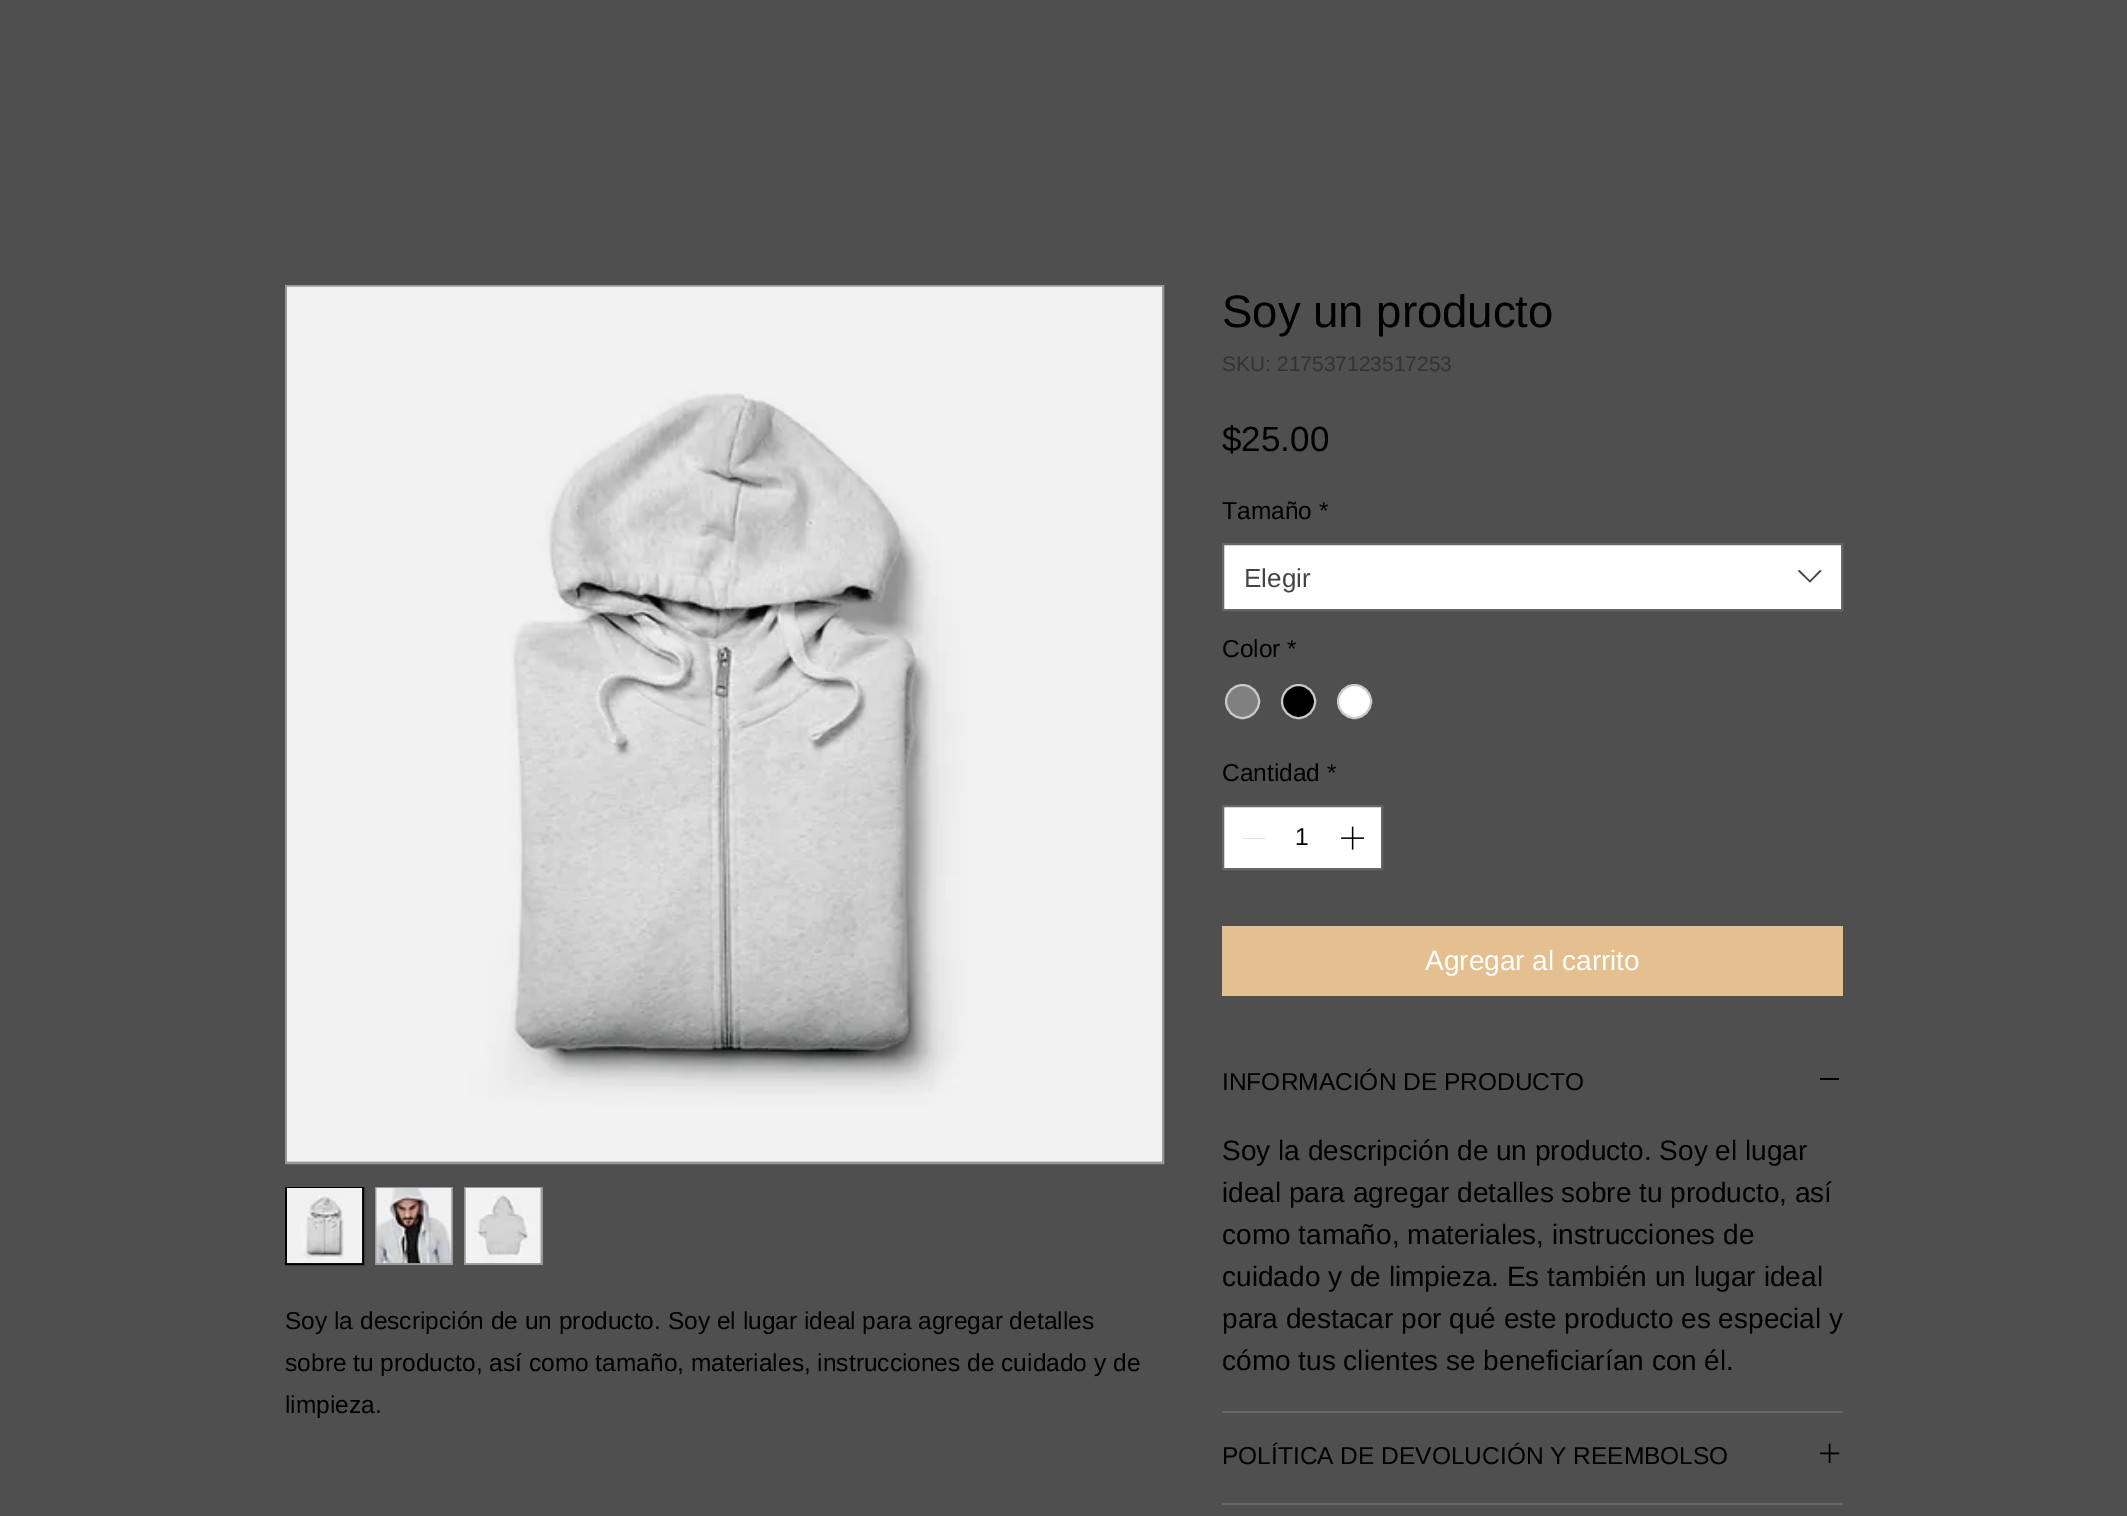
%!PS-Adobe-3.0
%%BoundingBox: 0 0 2127 1516
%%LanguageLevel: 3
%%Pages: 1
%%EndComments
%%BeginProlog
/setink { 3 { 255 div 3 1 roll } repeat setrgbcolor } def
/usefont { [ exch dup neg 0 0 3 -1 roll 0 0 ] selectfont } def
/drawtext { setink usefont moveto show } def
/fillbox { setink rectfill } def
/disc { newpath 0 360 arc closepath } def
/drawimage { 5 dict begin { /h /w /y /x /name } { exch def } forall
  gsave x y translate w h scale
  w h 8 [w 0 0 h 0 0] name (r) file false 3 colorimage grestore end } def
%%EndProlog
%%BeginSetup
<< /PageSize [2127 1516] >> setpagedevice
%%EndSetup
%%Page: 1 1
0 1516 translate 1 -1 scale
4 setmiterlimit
0 0 2127 1516 79 79 79 fillbox
153 153 153 setink
2 setlinewidth
286 286 877 877 rectstroke
(assets/img1.rgb) 287 286 875 876 drawimage
0 0 0 setink
286 1188 77 76 rectstroke
(assets/img2.rgb) 287 1188 76 76 drawimage
375 1187 78 78 153 153 153 fillbox
(assets/img3.rgb) 376 1188 76 76 drawimage
464 1187 79 78 153 153 153 fillbox
(assets/img4.rgb) 465 1188 76 76 drawimage
(Soy la descripción de un producto. Soy el lugar ideal para agregar detalles) 285 1329 /LiberationSans-Regular 24.5 0 0 0 drawtext
(sobre tu producto, así como tamaño, materiales, instrucciones de cuidado y de) 285 1371 /LiberationSans-Regular 24.5 0 0 0 drawtext
(limpieza.) 285 1413 /LiberationSans-Regular 24.5 0 0 0 drawtext
(Soy un producto) 1222 327 /LiberationSans-Regular 45.5 0 0 0 drawtext
(SKU: 217537123517253) 1222 371 /LiberationSans-Regular 21 51 51 51 drawtext
($25.00) 1222 451 /LiberationSans-Regular 35 0 0 0 drawtext
(Tamaño *) 1222 519 /LiberationSans-Regular 24.5 0 0 0 drawtext
255 255 255 setink
1223 544 moveto 1842 544 lineto 1842 610 lineto 1223 610 lineto closepath gsave fill grestore
102 102 102 setink
stroke
(Elegir) 1244 587 /LiberationSans-Regular 26 68 68 68 drawtext
1820 570 moveto 1821.5 571 lineto 1810 582.5 lineto 1798 571 lineto 1799.5 570 lineto 1810 580.5 lineto closepath eofill
(Color *) 1222 657 /LiberationSans-Regular 24.5 0 0 0 drawtext
128 128 128 setink
1242.5 701.5 16.5 disc gsave fill grestore
201 201 201 setink
stroke
0 0 0 setink
1298.5 701.5 16.5 disc gsave fill grestore
201 201 201 setink
stroke
255 255 255 setink
1354.5 701.5 16.5 disc gsave fill grestore
201 201 201 setink
stroke
(Cantidad *) 1222 781 /LiberationSans-Regular 24.5 0 0 0 drawtext
255 255 255 setink
1223 806 moveto 1382 806 lineto 1382 869 lineto 1223 869 lineto closepath gsave fill grestore
102 102 102 setink
stroke
1242 838 23 1 227 227 227 fillbox
(1) 1295 845 /LiberationSans-Regular 24.5 0 0 0 drawtext
(assets/img5.rgb) 1341 826 24 24 drawimage
1222 926 621 70 228 191 143 fillbox
(Agregar al carrito) 1425 970 /LiberationSans-Regular 28 255 255 255 drawtext
1222 1411 621 2 102 102 102 fillbox
(INFORMACIÓN DE PRODUCTO) 1222 1090 /LiberationSans-Regular 24.5 0 0 0 drawtext
1820 1078 19 2 0 0 0 fillbox
(Soy la descripción de un producto. Soy el lugar) 1222 1160 /LiberationSans-Regular 28 0 0 0 drawtext
(ideal para agregar detalles sobre tu producto, así) 1222 1202 /LiberationSans-Regular 28 0 0 0 drawtext
(como tamaño, materiales, instrucciones de) 1222 1244 /LiberationSans-Regular 28 0 0 0 drawtext
(cuidado y de limpieza. Es también un lugar ideal) 1222 1286 /LiberationSans-Regular 28 0 0 0 drawtext
(para destacar por qué este producto es especial y) 1222 1328 /LiberationSans-Regular 28 0 0 0 drawtext
(cómo tus clientes se beneficiarían con él.) 1222 1370 /LiberationSans-Regular 28 0 0 0 drawtext
1222 1503 621 2 102 102 102 fillbox
(POLÍTICA DE DEVOLUCIÓN Y REEMBOLSO) 1222 1464 /LiberationSans-Regular 24.5 0 0 0 drawtext
(assets/img6.rgb) 1820 1443 20 20 drawimage
showpage
%%EOF
